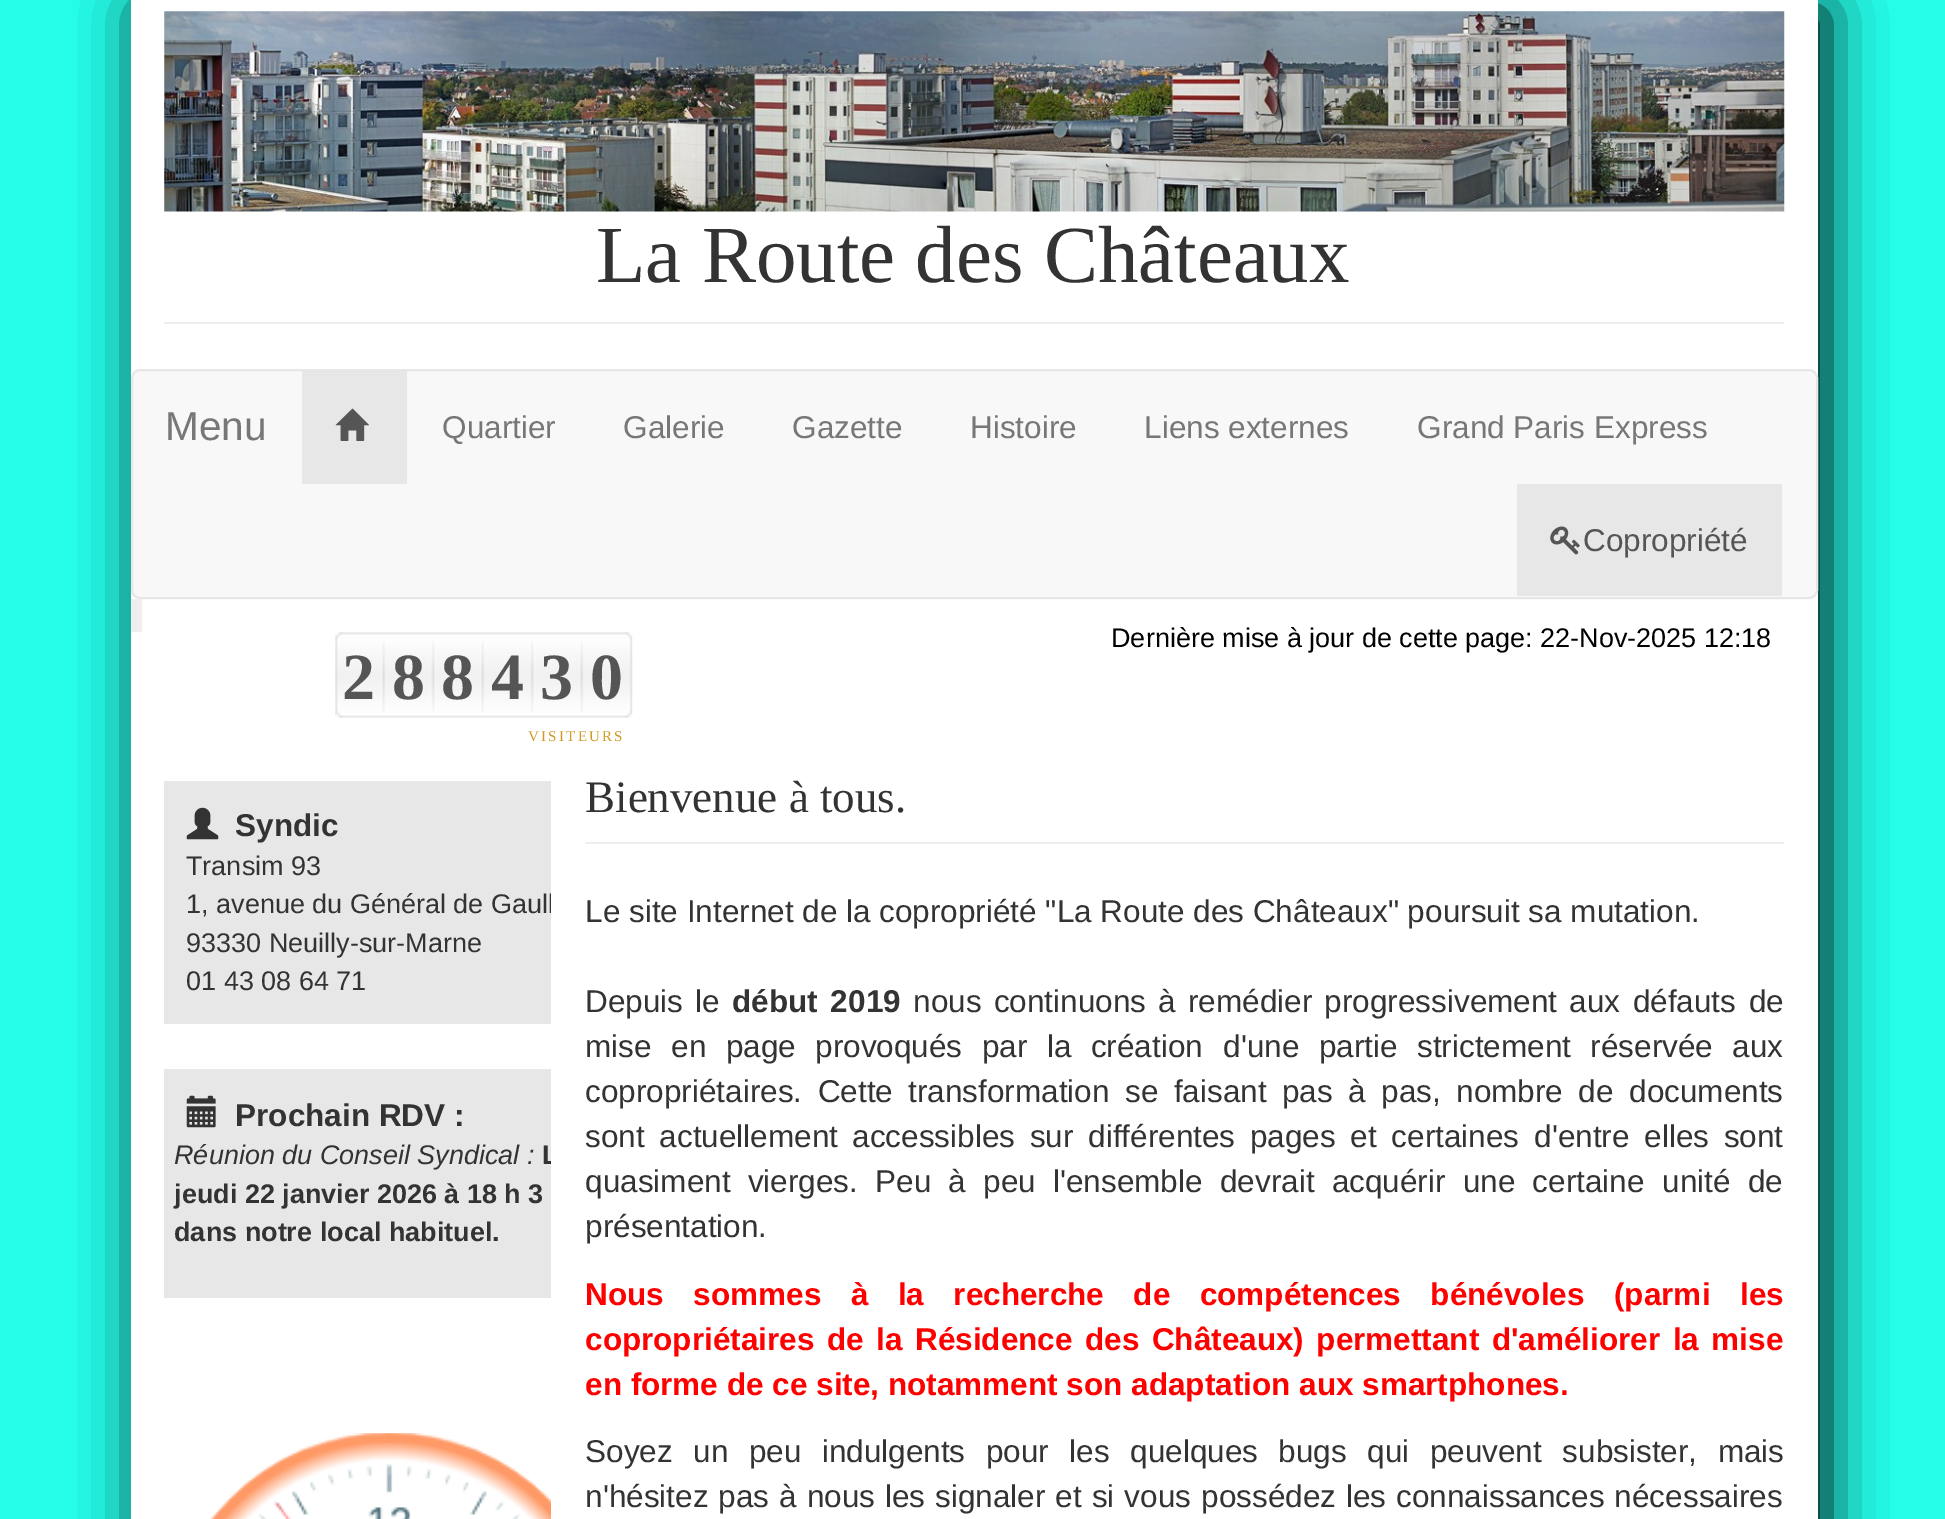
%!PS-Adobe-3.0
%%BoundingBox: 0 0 1945 1519
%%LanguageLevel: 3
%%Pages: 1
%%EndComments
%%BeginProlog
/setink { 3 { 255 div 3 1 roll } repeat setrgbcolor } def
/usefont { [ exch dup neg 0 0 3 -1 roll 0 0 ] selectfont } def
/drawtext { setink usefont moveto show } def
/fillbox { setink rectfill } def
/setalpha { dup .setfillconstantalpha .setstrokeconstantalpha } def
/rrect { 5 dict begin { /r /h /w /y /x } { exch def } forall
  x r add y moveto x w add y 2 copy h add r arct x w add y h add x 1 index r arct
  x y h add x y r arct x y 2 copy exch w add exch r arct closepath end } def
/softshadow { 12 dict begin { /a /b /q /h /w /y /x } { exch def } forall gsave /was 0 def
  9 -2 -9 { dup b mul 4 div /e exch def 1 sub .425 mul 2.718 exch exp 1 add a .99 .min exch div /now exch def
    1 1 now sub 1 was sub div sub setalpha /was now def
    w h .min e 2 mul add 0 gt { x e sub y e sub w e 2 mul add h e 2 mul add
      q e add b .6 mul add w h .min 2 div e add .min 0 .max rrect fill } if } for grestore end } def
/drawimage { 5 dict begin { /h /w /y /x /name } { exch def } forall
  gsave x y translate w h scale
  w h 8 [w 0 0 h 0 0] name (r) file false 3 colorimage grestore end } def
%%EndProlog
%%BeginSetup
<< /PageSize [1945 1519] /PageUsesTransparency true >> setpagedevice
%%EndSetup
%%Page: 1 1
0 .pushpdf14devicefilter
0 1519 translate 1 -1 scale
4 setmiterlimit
0 0 1945 1519 37 253 233 fillbox
0 0 0 setink
140 9 1687 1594 0 28 1 softshadow
131 0 1687 761 255 255 255 fillbox
164 322 1620 2 238 238 238 fillbox
(assets/img1.rgb) 164 11 1621 201 drawimage
(La Route des Châteaux) 596 282 /LiberationSerif-Regular 81 51 51 51 drawtext
248 248 248 setink
132 370 1685 228 8 rrect gsave fill grestore
231 231 231 setink
2 setlinewidth
stroke
(Menu) 165 440 /LiberationSans-Regular 40.5 119 119 119 drawtext
302 371 105 113 231 231 231 fillbox
(assets/img2.rgb) 335 408 34 33 drawimage
(Quartier) 442 438 /LiberationSans-Regular 31.5 119 119 119 drawtext
(Galerie) 623 438 /LiberationSans-Regular 31.5 119 119 119 drawtext
(Gazette) 792 438 /LiberationSans-Regular 31.5 119 119 119 drawtext
(Histoire) 970 438 /LiberationSans-Regular 31.5 119 119 119 drawtext
(Liens externes) 1144 438 /LiberationSans-Regular 31.5 119 119 119 drawtext
(Grand Paris Express) 1417 438 /LiberationSans-Regular 31.5 119 119 119 drawtext
1517 484 265 112 231 231 231 fillbox
(assets/img3.rgb) 1550 526 30 29 drawimage
(Copropriété) 1583 551 /LiberationSans-Regular 31.5 85 85 85 drawtext
131 599 11 33 238 238 238 fillbox
(Dernière mise à jour de cette page: 22-Nov-2025 12:18) 1111 647 /LiberationSans-Regular 27 0 0 0 drawtext
131 761 420 758 255 255 255 fillbox
(assets/img4.rgb) 335 632 298 86 drawimage
(2 8 8 4 3 0) 342 699 /LiberationSerif-Bold 66 85 85 85 drawtext
/LiberationSerif-Regular 15 usefont
205 155 34 setink
528 741 moveto 2.25 0 (VISITEURS) ashow
164 781 387 243 231 231 231 fillbox
(assets/img5.rgb) 186 807 33 33 drawimage
(Syndic) 235 836 /LiberationSans-Bold 31.5 51 51 51 drawtext
(Transim 93) 186 875 /LiberationSans-Regular 27 51 51 51 drawtext
(1, avenue du Général de Gaull) 186 913 /LiberationSans-Regular 27 51 51 51 drawtext
(93330 Neuilly-sur-Marne) 186 952 /LiberationSans-Regular 27 51 51 51 drawtext
(01 43 08 64 71) 186 990 /LiberationSans-Regular 27 51 51 51 drawtext
164 1069 387 229 231 231 231 fillbox
(assets/img6.rgb) 186 1095 30 33 drawimage
(Prochain RDV :) 235 1126 /LiberationSans-Bold 31.5 51 51 51 drawtext
(Réunion du Conseil Syndical :) 174 1164 /LiberationSans-Italic 27 51 51 51 drawtext
(L) 542 1164 /LiberationSans-Bold 27 51 51 51 drawtext
(jeudi 22 janvier 2026 à 18 h 3) 174 1203 /LiberationSans-Bold 27 51 51 51 drawtext
(dans notre local habituel.) 174 1241 /LiberationSans-Bold 27 51 51 51 drawtext
(assets/img7.rgb) 209 1433 342 86 drawimage
551 761 1267 758 255 255 255 fillbox
585 842 1199 2 238 238 238 fillbox
(Bienvenue à tous.) 585 812 /LiberationSerif-Regular 45 51 51 51 drawtext
(Le site Internet de la copropriété "La Route des Châteaux" poursuit sa mutation.) 585 922 /LiberationSans-Regular 31.5 51 51 51 drawtext
585 1012 moveto 3.5 0 32 (Depuis le) widthshow
/LiberationSans-Bold 31.5 usefont
732 1012 moveto 4 0 32 (début 2019) widthshow
/LiberationSans-Regular 31.5 usefont
913 1012 moveto 3.5 0 32 (nous continuons à remédier progressivement) widthshow
1569 1012 moveto 4 0 32 (aux défauts de) widthshow
585 1057 moveto 10.75 0 32 (mise en page provoqués par la création) widthshow
1223 1057 moveto 10.75 0 32 (d'une partie strictement réservée aux) widthshow
585 1102 moveto 6.75 0 32 (copropriétaires. Cette) widthshow
908 1102 moveto 6.75 0 32 (transformation se faisant pas à pas, nombre de documents) widthshow
585 1147 moveto 6 0 32 (sont actuellement) widthshow
852 1147 moveto 6 0 32 (accessibles sur différentes pages et certaines d'entre elles sont) widthshow
585 1192 moveto 8.5 0 32 (quasiment vierges. Peu à peu l'ensemble devrait acquérir une certaine) widthshow
1662 1192 moveto 8.5 0 32 (unité de) widthshow
(présentation.) 585 1237 /LiberationSans-Regular 31.5 51 51 51 drawtext
/LiberationSans-Bold 31.5 usefont
255 0 0 setink
585 1305 moveto 20.75 0 32 (Nous sommes à la recherche de compétences bénévoles \(parmi les) widthshow
585 1350 moveto 3.75 0 32 (copropriétaires de la Résidence des Châteaux\) permettant d'améliorer la mise) widthshow
(en forme de ce site, notamment son adaptation aux smartphones.) 585 1395 /LiberationSans-Bold 31.5 255 0 0 drawtext
/LiberationSans-Regular 31.5 usefont
51 51 51 setink
585 1462 moveto 11.75 0 32 (Soyez un peu indulgents pour les quelques bugs qui peuvent subsister, mais) widthshow
585 1507 moveto 1.25 0 32 (n'hésitez pas à nous les signaler et si vous possédez les connaissances nécessaires) widthshow
.poppdf14devicefilter showpage
%%EOF
